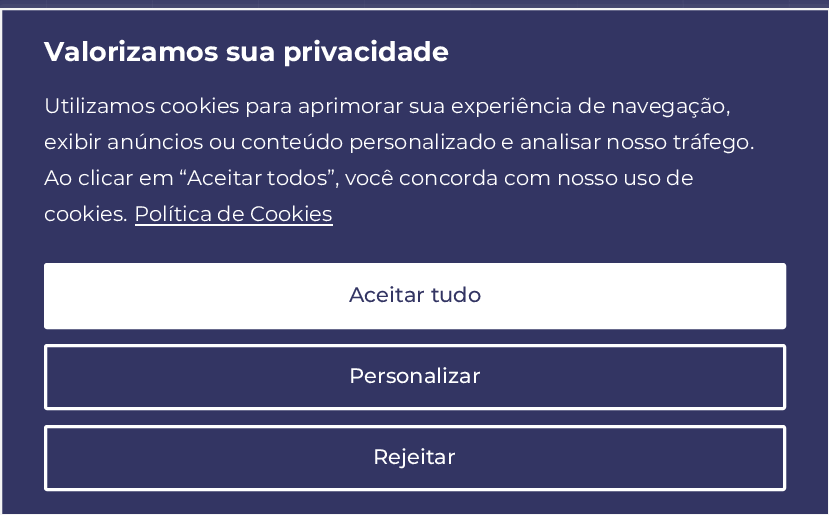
%!PS-Adobe-3.0
%%BoundingBox: 0 0 829 515
%%LanguageLevel: 3
%%Pages: 1
%%EndComments
%%BeginProlog
/setink { 3 { 255 div 3 1 roll } repeat setrgbcolor } def
/usefont { [ exch dup neg 0 0 3 -1 roll 0 0 ] selectfont } def
/drawtext { setink usefont moveto show } def
/fillbox { setink rectfill } def
/setalpha { dup .setfillconstantalpha .setstrokeconstantalpha } def
/rrect { 5 dict begin { /r /h /w /y /x } { exch def } forall
  x r add y moveto x w add y 2 copy h add r arct x w add y h add x 1 index r arct
  x y h add x y r arct x y 2 copy exch w add exch r arct closepath end } def
/softshadow { 12 dict begin { /a /b /q /h /w /y /x } { exch def } forall gsave /was 0 def
  9 -2 -9 { dup b mul 4 div /e exch def 1 sub .425 mul 2.718 exch exp 1 add a .99 .min exch div /now exch def
    1 1 now sub 1 was sub div sub setalpha /was now def
    w h .min e 2 mul add 0 gt { x e sub y e sub w e 2 mul add h e 2 mul add
      q e add b .6 mul add w h .min 2 div e add .min 0 .max rrect fill } if } for grestore end } def
/drawimage { 5 dict begin { /h /w /y /x /name } { exch def } forall
  gsave x y translate w h scale
  w h 8 [w 0 0 h 0 0] name (r) file false 3 colorimage grestore end } def
%%EndProlog
%%BeginSetup
<< /PageSize [829 515] /PageUsesTransparency true >> setpagedevice
%%EndSetup
%%Page: 1 1
0 .pushpdf14devicefilter
0 515 translate 1 -1 scale
4 setmiterlimit
0 0 829 515 255 255 255 fillbox
(assets/img1.rgb) 0 0 829 8 drawimage
172 171 171 setink
0 6 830 509 0 7.5 0.3 softshadow
51 53 99 setink
1 9 moveto 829 9 lineto 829 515 lineto 1 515 lineto closepath gsave fill grestore
244 244 244 setink
2 setlinewidth
stroke
(Valorizamos sua privacidade) 44 61 /Montserrat-Bold 27 255 255 255 drawtext
(Utilizamos cookies para aprimorar sua experiência de navegação,) 44 113 /Montserrat-Regular 21 255 255 255 drawtext
(exibir anúncios ou conteúdo personalizado e analisar nosso tráfego.) 44 149 /Montserrat-Regular 21 255 255 255 drawtext
(Ao clicar em “Aceitar todos”, você concorda com nosso uso de) 44 185 /Montserrat-Regular 21 255 255 255 drawtext
(cookies.) 44 221 /Montserrat-Regular 21 255 255 255 drawtext
(Política de Cookies) 134 221 /Montserrat-Regular 21 255 255 255 drawtext
135 224 198 2 255 255 255 fillbox
45.5 264.5 739 63 1.5 rrect gsave fill grestore
3 setlinewidth
stroke
(Aceitar tudo) 349 302 /Montserrat-Medium 21 51 53 99 drawtext
255 255 255 setink
45.5 345.5 739 63 1.5 rrect stroke
(Personalizar) 349 383 /Montserrat-Medium 21 255 255 255 drawtext
45.5 426.5 739 63 1.5 rrect stroke
(Rejeitar) 373 464 /Montserrat-Medium 21 255 255 255 drawtext
.poppdf14devicefilter showpage
%%EOF
